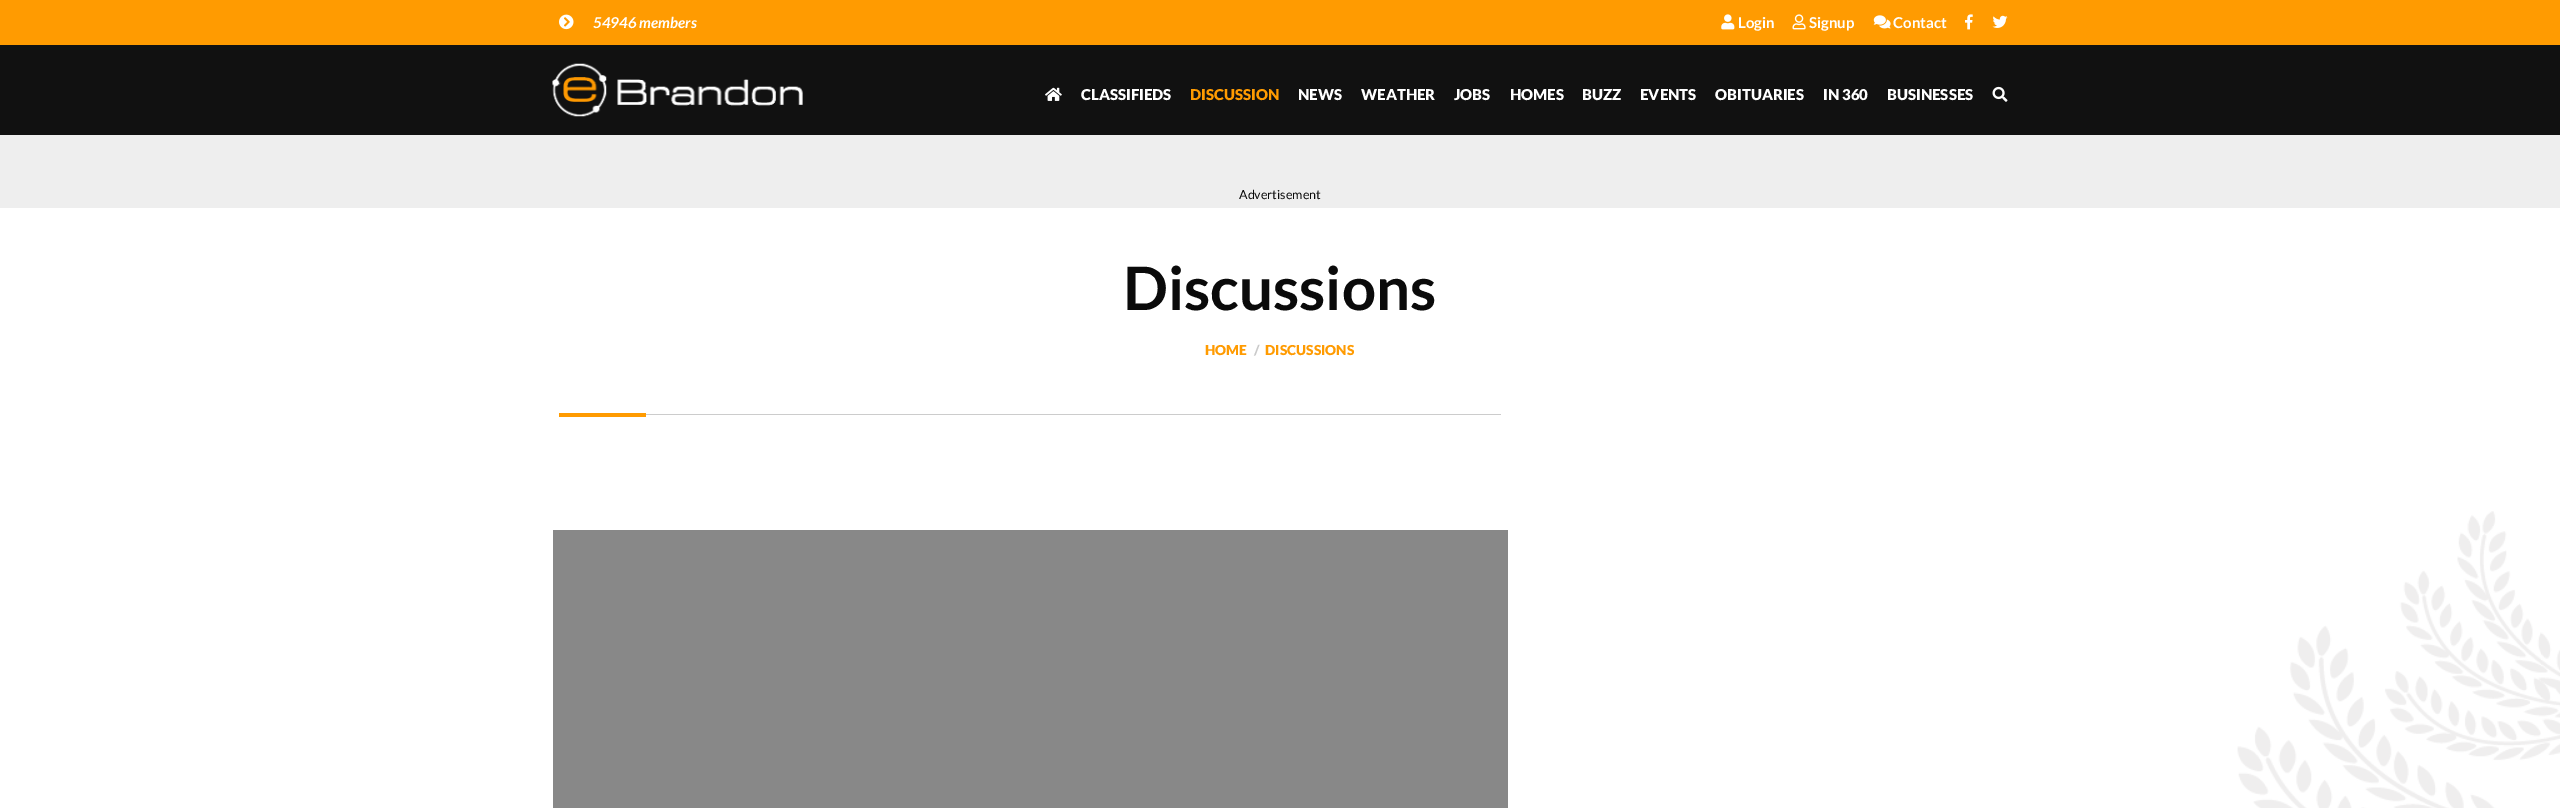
%!PS-Adobe-3.0
%%BoundingBox: 0 0 2560 808
%%LanguageLevel: 3
%%Pages: 1
%%EndComments
%%BeginProlog
/setink { 3 { 255 div 3 1 roll } repeat setrgbcolor } def
/usefont { [ exch dup neg 0 0 3 -1 roll 0 0 ] selectfont } def
/drawtext { setink usefont moveto show } def
/fillbox { setink rectfill } def
/drawimage { 5 dict begin { /h /w /y /x /name } { exch def } forall
  gsave x y translate w h scale
  w h 8 [w 0 0 h 0 0] name (r) file false 3 colorimage grestore end } def
%%EndProlog
%%BeginSetup
<< /PageSize [2560 808] >> setpagedevice
%%EndSetup
%%Page: 1 1
0 808 translate 1 -1 scale
4 setmiterlimit
0 0 2560 808 255 255 255 fillbox
0 0 2560 45 255 155 1 fillbox
(assets/img1.rgb) 559 14 15 16 drawimage
(54946 members) 593 28 /Lato-BoldItalic 15 255 255 255 drawtext
(assets/img2.rgb) 1721 14 14 16 drawimage
(Login) 1738 28 /Lato-Bold 15 255 255 255 drawtext
(assets/img3.rgb) 1792 14 14 16 drawimage
(Signup) 1809 28 /Lato-Bold 15 255 255 255 drawtext
(assets/img4.rgb) 1873 15 18 14 drawimage
(Contact) 1893 28 /Lato-Bold 15 255 255 255 drawtext
(assets/img5.rgb) 1965 14 8 16 drawimage
(assets/img6.rgb) 1992 15 16 13 drawimage
0 45 2560 90 17 17 17 fillbox
(assets/img7.rgb) 552 63 251 54 drawimage
(assets/img8.rgb) 1045 87 17 14 drawimage
(CLASSIFIEDS) 1081 100 /Lato-Black 15 255 255 255 drawtext
(DISCUSSION) 1190 100 /Lato-Black 15 255 155 1 drawtext
(NEWS) 1298 100 /Lato-Black 15 255 255 255 drawtext
(WEATHER) 1361 100 /Lato-Black 15 255 255 255 drawtext
(JOBS) 1454 100 /Lato-Black 15 255 255 255 drawtext
(HOMES) 1510 100 /Lato-Black 15 255 255 255 drawtext
(BUZZ) 1582 100 /Lato-Black 15 255 255 255 drawtext
(EVENTS) 1640 100 /Lato-Black 15 255 255 255 drawtext
(OBITUARIES) 1715 100 /Lato-Black 15 255 255 255 drawtext
(IN 360) 1823 100 /Lato-Black 15 255 255 255 drawtext
(BUSINESSES) 1887 100 /Lato-Black 15 255 255 255 drawtext
(assets/img9.rgb) 1992 86 16 16 drawimage
0 135 2560 73 238 238 238 fillbox
(Advertisement) 1239 199 /Lato-Regular 12.5 10 10 10 drawtext
(assets/img10.rgb) 2237 511 323 297 drawimage
(Discussions) 1123 310 /Lato-Bold 60 10 10 10 drawtext
(HOME) 1205 355 /Lato-Black 13.75 255 155 1 drawtext
(/) 1254 355 /Lato-Black 13.75 202 202 202 drawtext
(DISCUSSIONS) 1265 355 /Lato-Black 13.75 255 155 1 drawtext
646 414 855 1 204 204 204 fillbox
559 413 87 4 255 155 1 fillbox
553 530 955 278 136 136 136 fillbox
showpage
%%EOF
